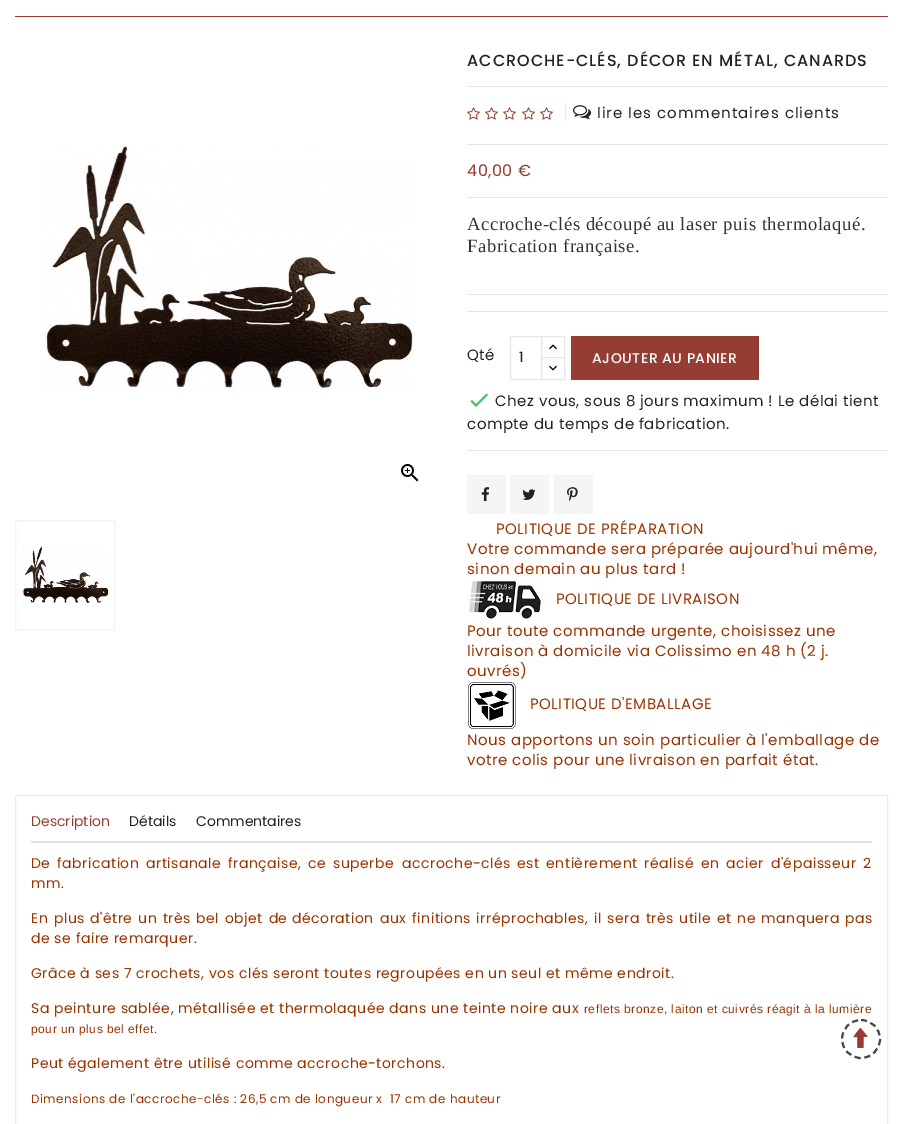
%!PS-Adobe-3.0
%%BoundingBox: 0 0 903 1124
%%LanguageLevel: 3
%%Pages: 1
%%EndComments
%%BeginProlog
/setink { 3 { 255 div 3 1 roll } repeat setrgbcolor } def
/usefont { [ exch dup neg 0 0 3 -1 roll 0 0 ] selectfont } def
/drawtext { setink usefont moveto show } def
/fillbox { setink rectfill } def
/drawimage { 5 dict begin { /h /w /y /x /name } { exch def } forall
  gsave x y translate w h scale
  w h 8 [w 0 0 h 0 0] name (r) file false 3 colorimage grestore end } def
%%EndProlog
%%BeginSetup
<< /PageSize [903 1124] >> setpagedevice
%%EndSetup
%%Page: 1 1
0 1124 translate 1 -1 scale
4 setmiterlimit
0 0 903 1124 255 255 255 fillbox
15 16 873 1 150 61 51 fillbox
(assets/img1.rgb) 45 144 369 245 drawimage
(assets/img2.rgb) 401 464 18 18 drawimage
242 242 242 setink
15.5 520.5 99 109 rectstroke
(assets/img3.rgb) 23 546 86 57 drawimage
/Poppins-Medium 16 usefont
35 35 35 setink
467 66 moveto 1 0 (ACCROCHE-CLÉS, DÉCOR EN MÉTAL, CANARDS) ashow
467 86 421 1 230 230 230 fillbox
(assets/img4.rgb) 467 107 13 13 drawimage
(assets/img4.rgb) 485 107 13 13 drawimage
(assets/img4.rgb) 503 107 13 13 drawimage
(assets/img4.rgb) 522 107 13 13 drawimage
(assets/img4.rgb) 540 107 13 13 drawimage
565 103 1 18 232 232 232 fillbox
(assets/img5.rgb) 573 105 18 15 drawimage
/Poppins-Regular 15 usefont
35 35 35 setink
597 118 moveto 1 0 (lire les commentaires clients) ashow
467 144 421 1 230 230 230 fillbox
/Poppins-Regular 16 usefont
150 61 51 setink
467 176 moveto 0.5 0 (40,00 €) ashow
467 197 421 1 230 230 230 fillbox
/LiberationSerif-Regular 18.7 usefont
51 51 51 setink
467 230 moveto 0.5 0 (Accroche-clés découpé au laser puis thermolaqué.) ashow
467 252 moveto 0.5 0 (Fabrication française.) ashow
467 294 421 1 230 230 230 fillbox
467 311 421 1 230 230 230 fillbox
/Poppins-Regular 15 usefont
35 35 35 setink
467 360 moveto 0.5 0 (Qté) ashow
231 231 231 setink
541.5 336.5 23 22 rectstroke
542 358 22 1 255 255 255 fillbox
231 231 231 setink
541.5 357.5 23 22 rectstroke
510.5 336.5 31 43 rectstroke
(1) 519 362 /Poppins-Regular 14 35 35 35 drawtext
(assets/img6.rgb) 549 344 8 6 drawimage
(assets/img7.rgb) 549 365 8 6 drawimage
571 336 188 44 150 61 51 fillbox
/Poppins-Medium 14 usefont
255 255 255 setink
592 363 moveto 0.5 0 (AJOUTER AU PANIER) ashow
76 187 108 setink
476 404 moveto 486.5 393.5 lineto 488 395 lineto 476 407 lineto 470.5 401.5 lineto 472 400 lineto closepath fill
/Poppins-Regular 15 usefont
35 35 35 setink
495 406 moveto 0.5 0 (Chez vous, sous 8 jours maximum ! Le délai tient) ashow
467 429 moveto 0.5 0 (compte du temps de fabrication.) ashow
467 450 421 1 230 230 230 fillbox
467 475 39 39 245 245 245 fillbox
(assets/img8.rgb) 481 487 9 15 drawimage
510 475 39 39 245 245 245 fillbox
(assets/img9.rgb) 522 489 14 11 drawimage
554 475 39 39 245 245 245 fillbox
(assets/img10.rgb) 567 487 11 14 drawimage
153 51 0 setink
496 534 moveto 0.5 0 (POLITIQUE DE PRÉPARATION) ashow
467 554 moveto 0.5 0 (Votre commande sera préparée aujourd'hui même,) ashow
467 574 moveto 0.5 0 (sinon demain au plus tard !) ashow
(assets/img11.rgb) 467 579 76 40 drawimage
556 604 moveto 0.5 0 (POLITIQUE DE LIVRAISON) ashow
467 636 moveto 0.5 0 (Pour toute commande urgente, choisissez une) ashow
467 656 moveto 0.5 0 (livraison à domicile via Colissimo en 48 h \(2 j.) ashow
467 676 moveto 0.5 0 (ouvrés\)) ashow
(assets/img12.rgb) 468 682 49 47 drawimage
530 709 moveto 0.5 0 (POLITIQUE D'EMBALLAGE) ashow
467 745 moveto 0.5 0 (Nous apportons un soin particulier à l'emballage de) ashow
467 765 moveto 0.5 0 (votre colis pour une livraison en parfait état.) ashow
235 235 235 setink
15.5 795.5 872 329 rectstroke
31 841 841 2 223 223 223 fillbox
(Description) 31 826 /Poppins-Regular 14 150 61 51 drawtext
(Détails) 129 826 /Poppins-Regular 14 35 35 35 drawtext
(Commentaires) 196 826 /Poppins-Regular 14 35 35 35 drawtext
153 51 0 setink
31 868 moveto 2.5 0 32 0.5 0 (De fabrication) awidthshow
146 868 moveto 0.5 0 (artisanale) ashow
228 868 moveto 2.5 0 32 0.5 0 (française, ce superbe) awidthshow
402 868 moveto 0.5 0 (accroche-clés) ashow
517 868 moveto 2.5 0 32 0.5 0 (est entièrement réalisé en acier d'épaisseur 2) awidthshow
31 888 moveto 0.5 0 (mm.) ashow
31 923 moveto 1.25 0 32 0.5 0 (En plus d'être un très bel objet de) awidthshow
292 923 moveto 0.5 0 (décoration) ashow
380 923 moveto 1.25 0 32 0.5 0 (aux finitions irréprochables, il sera très utile et ne manquera pas) awidthshow
31 943 moveto 0.5 0 (de se faire remarquer.) ashow
31 978 moveto 0.5 0 (Grâce à ses 7 crochets, vos clés seront toutes regroupées en un seul et même endroit.) ashow
31 1013 moveto 0.5 0 (Sa peinture sablée, métallisée et thermolaquée dans une teinte noire aux) ashow
/LiberationSans-Regular 12 usefont
584 1013 moveto 0.5 0 (reflets bronze, laiton et cuivrés réagit à la lumière) ashow
31 1033 moveto 0.5 0 (pour un plus bel effet.) ashow
/Poppins-Regular 14 usefont
31 1068 moveto 0.5 0 (Peut également être utilisé comme accroche-torchons.) ashow
/Poppins-Regular 12 usefont
31 1103 moveto 0.5 0 (Dimensions de l'accroche-clés : 26,5 cm de longueur x  17 cm de hauteur) ashow
(assets/img13.rgb) 853 1028 15 20 drawimage
71 71 71 setink
2 setlinewidth
[6 4] 0 setdash
861 1020 moveto 871.5 1020 880 1028.5 880 1039 curveto 880 1049.5 871.5 1058 861 1058 curveto 850.5 1058 842 1049.5 842 1039 curveto 842 1028.5 850.5 1020 861 1020 curveto closepath stroke
showpage
%%EOF
